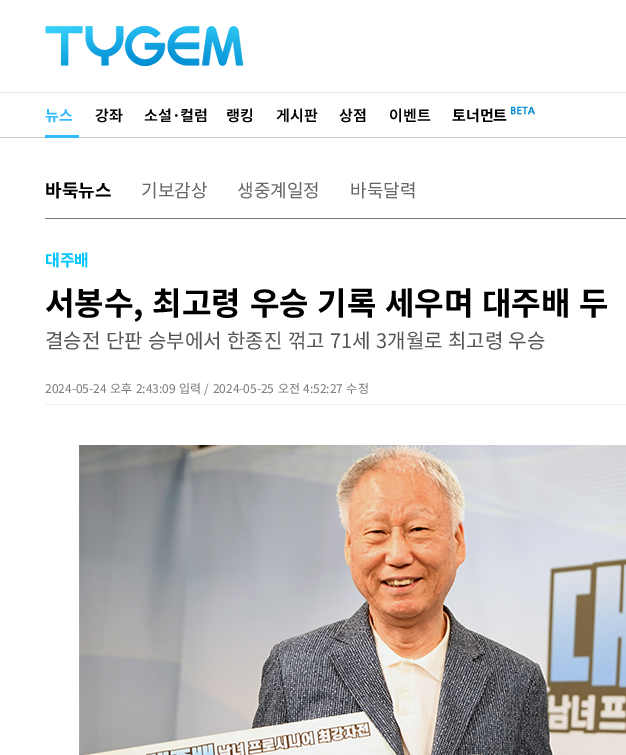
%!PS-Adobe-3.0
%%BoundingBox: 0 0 626 755
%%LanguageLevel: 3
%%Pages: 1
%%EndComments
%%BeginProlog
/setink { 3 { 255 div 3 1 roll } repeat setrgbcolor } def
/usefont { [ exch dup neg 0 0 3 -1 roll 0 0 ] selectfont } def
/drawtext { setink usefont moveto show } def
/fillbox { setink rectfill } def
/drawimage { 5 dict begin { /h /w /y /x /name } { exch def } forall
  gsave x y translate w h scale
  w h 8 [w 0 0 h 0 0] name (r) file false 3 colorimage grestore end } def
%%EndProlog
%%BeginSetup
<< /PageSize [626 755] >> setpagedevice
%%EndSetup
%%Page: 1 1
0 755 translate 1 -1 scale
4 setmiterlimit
0 0 626 755 255 255 255 fillbox
0 92 626 1 231 231 231 fillbox
(assets/img1.rgb) 45 26 199 40 drawimage
0 137 626 1 200 200 200 fillbox
45 135 34 3 51 186 255 fillbox
(뉴스) 45 121 /NotoSansKR-Bold 15 51 186 255 drawtext
(강좌) 95 121 /NotoSansKR-SemiBold 15 0 0 0 drawtext
(소설·컬럼) 144 121 /NotoSansKR-SemiBold 15 0 0 0 drawtext
(랭킹) 226 121 /NotoSansKR-SemiBold 15 0 0 0 drawtext
(게시판) 276 121 /NotoSansKR-SemiBold 15 0 0 0 drawtext
(상점) 339 121 /NotoSansKR-SemiBold 15 0 0 0 drawtext
(이벤트) 389 121 /NotoSansKR-SemiBold 15 0 0 0 drawtext
(토너먼트) 452 121 /NotoSansKR-Bold 15 0 0 0 drawtext
(assets/img2.rgb) 511 106 25 9 drawimage
45 218 581 1 118 118 118 fillbox
(바둑뉴스) 45 197 /NotoSansKR-Bold 18 0 0 0 drawtext
(기보감상) 141 197 /NotoSansKR-Regular 18 102 102 102 drawtext
(생중계일정) 237 197 /NotoSansKR-Regular 18 102 102 102 drawtext
(바둑달력) 350 197 /NotoSansKR-Regular 18 102 102 102 drawtext
45 404 581 1 240 240 240 fillbox
(대주배) 45 266 /NotoSansKR-Bold 16 5 197 255 drawtext
/NotoSansKR-Bold 32 usefont
0 0 0 setink
45 315 moveto 1.5 0 32 (서봉수, 최고령 우승 기록 세우며 대주배 두) widthshow
/NotoSansKR-Regular 20 usefont
85 85 85 setink
45 348 moveto 1 0 32 (결승전 단판 승부에서 한종진 꺾고 71세 3개월로 최고령 우승) widthshow
/NotoSansKR-Regular 12 usefont
122 122 122 setink
45 393 moveto 0.75 0 32 (2024-05-24 오후 2:43:09 입력 / 2024-05-25 오전 4:52:27 수정) widthshow
(assets/img3.rgb) 79 445 547 310 drawimage
showpage
%%EOF
